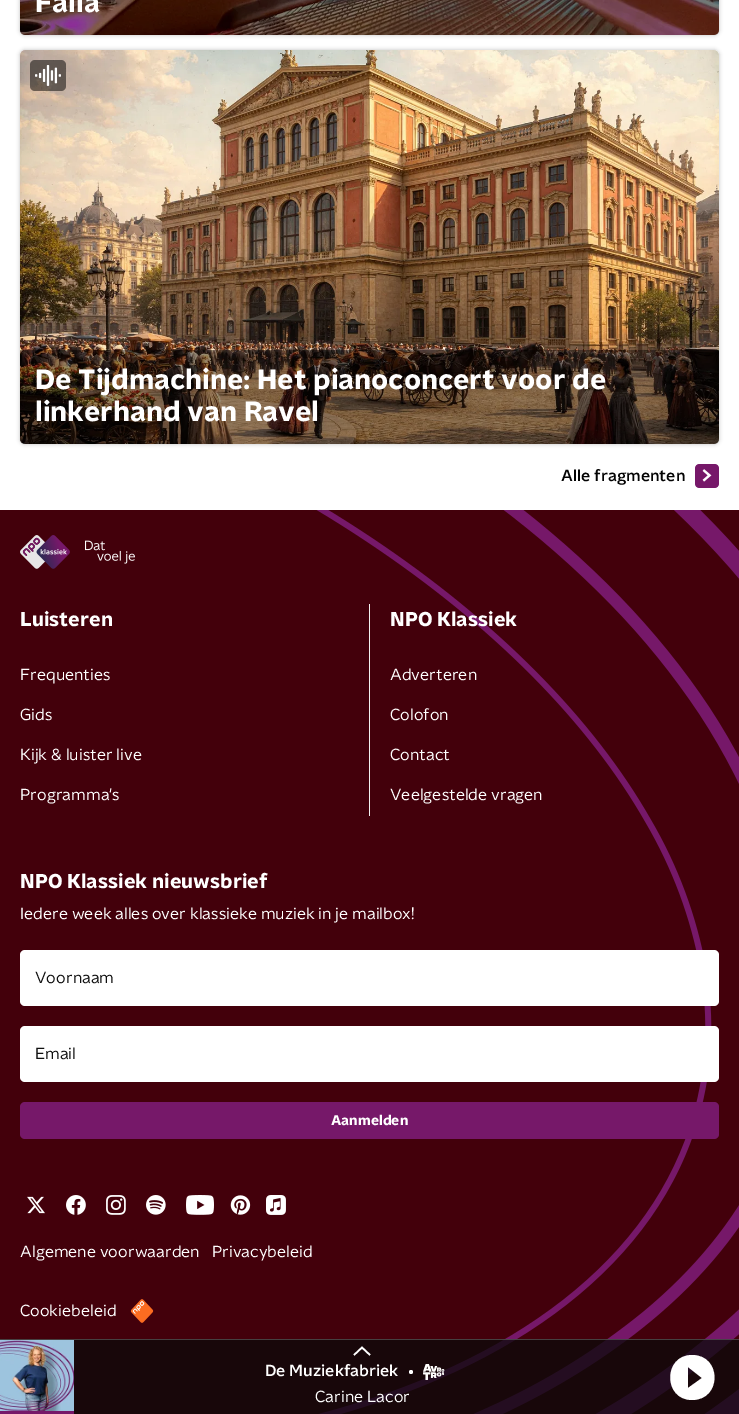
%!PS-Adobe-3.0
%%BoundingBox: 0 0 739 1414
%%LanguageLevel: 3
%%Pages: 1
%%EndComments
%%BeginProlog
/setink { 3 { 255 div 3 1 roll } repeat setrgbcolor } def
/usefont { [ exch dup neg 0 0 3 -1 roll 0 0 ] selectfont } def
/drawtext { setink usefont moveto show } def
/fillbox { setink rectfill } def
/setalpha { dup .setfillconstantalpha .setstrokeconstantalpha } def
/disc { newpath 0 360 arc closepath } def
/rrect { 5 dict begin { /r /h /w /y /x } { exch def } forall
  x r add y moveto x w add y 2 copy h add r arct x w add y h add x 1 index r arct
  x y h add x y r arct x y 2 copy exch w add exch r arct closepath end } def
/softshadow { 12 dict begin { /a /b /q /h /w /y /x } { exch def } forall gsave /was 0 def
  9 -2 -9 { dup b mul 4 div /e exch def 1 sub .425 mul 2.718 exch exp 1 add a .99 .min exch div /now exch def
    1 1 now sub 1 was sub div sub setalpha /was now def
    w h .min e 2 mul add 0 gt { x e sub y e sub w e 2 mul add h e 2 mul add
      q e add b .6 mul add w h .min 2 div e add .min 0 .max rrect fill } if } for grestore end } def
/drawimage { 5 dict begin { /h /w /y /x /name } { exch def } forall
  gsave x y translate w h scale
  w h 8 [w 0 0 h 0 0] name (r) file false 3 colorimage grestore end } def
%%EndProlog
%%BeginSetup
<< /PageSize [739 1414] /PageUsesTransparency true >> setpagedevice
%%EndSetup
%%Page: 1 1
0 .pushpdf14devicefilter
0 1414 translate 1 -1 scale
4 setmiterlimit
0 0 739 1414 255 255 255 fillbox
0 0 0 setink
20 -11 699 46 5 2 0.25 softshadow
(assets/img1.rgb) 20 0 699 35 drawimage
0.4 setalpha
20 -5 moveto 719 -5 lineto 719 30 lineto 719 33 717 35 714 35 curveto 25 35 lineto 22 35 20 33 20 30 curveto closepath fill
1 setalpha
(Falla) 35 12 /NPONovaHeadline-Bold 28 255 255 255 drawtext
0 0 0 setink
20 50 699 394 5 2 0.25 softshadow
(assets/img2.rgb) 20 50 699 394 drawimage
0.5 setalpha
30 60 36 31 5 rrect fill
1 setalpha
(assets/img3.rgb) 35 65 26 21 drawimage
0.4 setalpha
20 350 moveto 719 350 lineto 719 439 lineto 719 442 717 444 714 444 curveto 25 444 lineto 22 444 20 442 20 439 curveto closepath fill
1 setalpha
(De Tijdmachine: Het pianoconcert voor de) 35 389 /NPONovaHeadline-Bold 28 255 255 255 drawtext
(linkerhand van Ravel) 35 421 /NPONovaHeadline-Bold 28 255 255 255 drawtext
(Alle fragmenten) 561 481 /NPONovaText-Medium 16 3 3 3 drawtext
(assets/img4.rgb) 695 464 24 24 drawimage
0 510 739 904 67 0 11 fillbox
(assets/img5.rgb) 316 510 423 904 drawimage
(assets/img6.rgb) 20 535 50 34 drawimage
(assets/img7.rgb) 85 540 50 24 drawimage
369 604 1 212 241 241 241 fillbox
(Luisteren) 20 626 /NPONovaHeadline-Bold 20 255 255 255 drawtext
(Frequenties) 20 680 /NPONovaText-Regular 16 255 255 255 drawtext
(Gids) 20 720 /NPONovaText-Regular 16 255 255 255 drawtext
(Kijk & luister live) 20 760 /NPONovaText-Regular 16 255 255 255 drawtext
(Programma's) 20 800 /NPONovaText-Regular 16 255 255 255 drawtext
(NPO Klassiek) 390 626 /NPONovaHeadline-Bold 20 255 255 255 drawtext
(Adverteren) 390 680 /NPONovaText-Regular 16 255 255 255 drawtext
(Colofon) 390 720 /NPONovaText-Regular 16 255 255 255 drawtext
(Contact) 390 760 /NPONovaText-Regular 16 255 255 255 drawtext
(Veelgestelde vragen) 390 800 /NPONovaText-Regular 16 255 255 255 drawtext
(NPO Klassiek nieuwsbrief) 20 888 /NPONovaHeadline-Bold 20 255 255 255 drawtext
(Iedere week alles over klassieke muziek in je mailbox!) 20 919 /NPONovaText-Regular 16 255 255 255 drawtext
20 950 699 56 5 rrect fill
(Voornaam) 35 983 /NPONovaText-Regular 16 16 16 16 drawtext
255 255 255 setink
20 1026 699 56 5 rrect fill
(Email) 35 1059 /NPONovaText-Regular 16 16 16 16 drawtext
118 24 105 setink
20 1102 699 37 5 rrect fill
(Aanmelden) 331 1125 /NPONovaHeadline-Bold 14 255 255 255 drawtext
(assets/img8.rgb) 27 1196 18 18 drawimage
(assets/img9.rgb) 66 1195 20 20 drawimage
(assets/img10.rgb) 106 1195 20 20 drawimage
(assets/img11.rgb) 146 1195 20 20 drawimage
(assets/img12.rgb) 186 1195 28 20 drawimage
(assets/img13.rgb) 230 1195 21 20 drawimage
(assets/img14.rgb) 266 1195 20 20 drawimage
(Algemene voorwaarden) 20 1257 /NPONovaText-Regular 16 255 255 255 drawtext
(Privacybeleid) 212 1257 /NPONovaText-Regular 16 255 255 255 drawtext
(Cookiebeleid) 20 1316 /NPONovaText-Regular 16 255 255 255 drawtext
(assets/img15.rgb) 130 1299 24 24 drawimage
0.75 setalpha
0 1339 739 75 9 9 9 fillbox
0.65 setalpha
0 1339 739 1 95 95 95 fillbox
1 setalpha
(assets/img16.rgb) 0 1340 74 71 drawimage
0 1411 74 3 118 24 105 fillbox
255 255 255 setink
1.6 setlinewidth
370 1355 moveto 362 1347.5 lineto 354 1355 lineto stroke
(De Muziekfabriek) 265 1376 /NPONovaText-Medium 16 255 255 255 drawtext
411 1372 2 disc fill
(assets/img17.rgb) 423 1364 22 16 drawimage
(Carine Lacor) 315 1402 /NPONovaText-Regular 16 255 255 255 drawtext
692 1355 moveto 663 1355 663 1400 692 1400 curveto 722 1400 722 1355 692 1355 curveto closepath 688 1388 moveto 688 1367 lineto 702 1378 lineto closepath fill
.poppdf14devicefilter showpage
%%EOF
